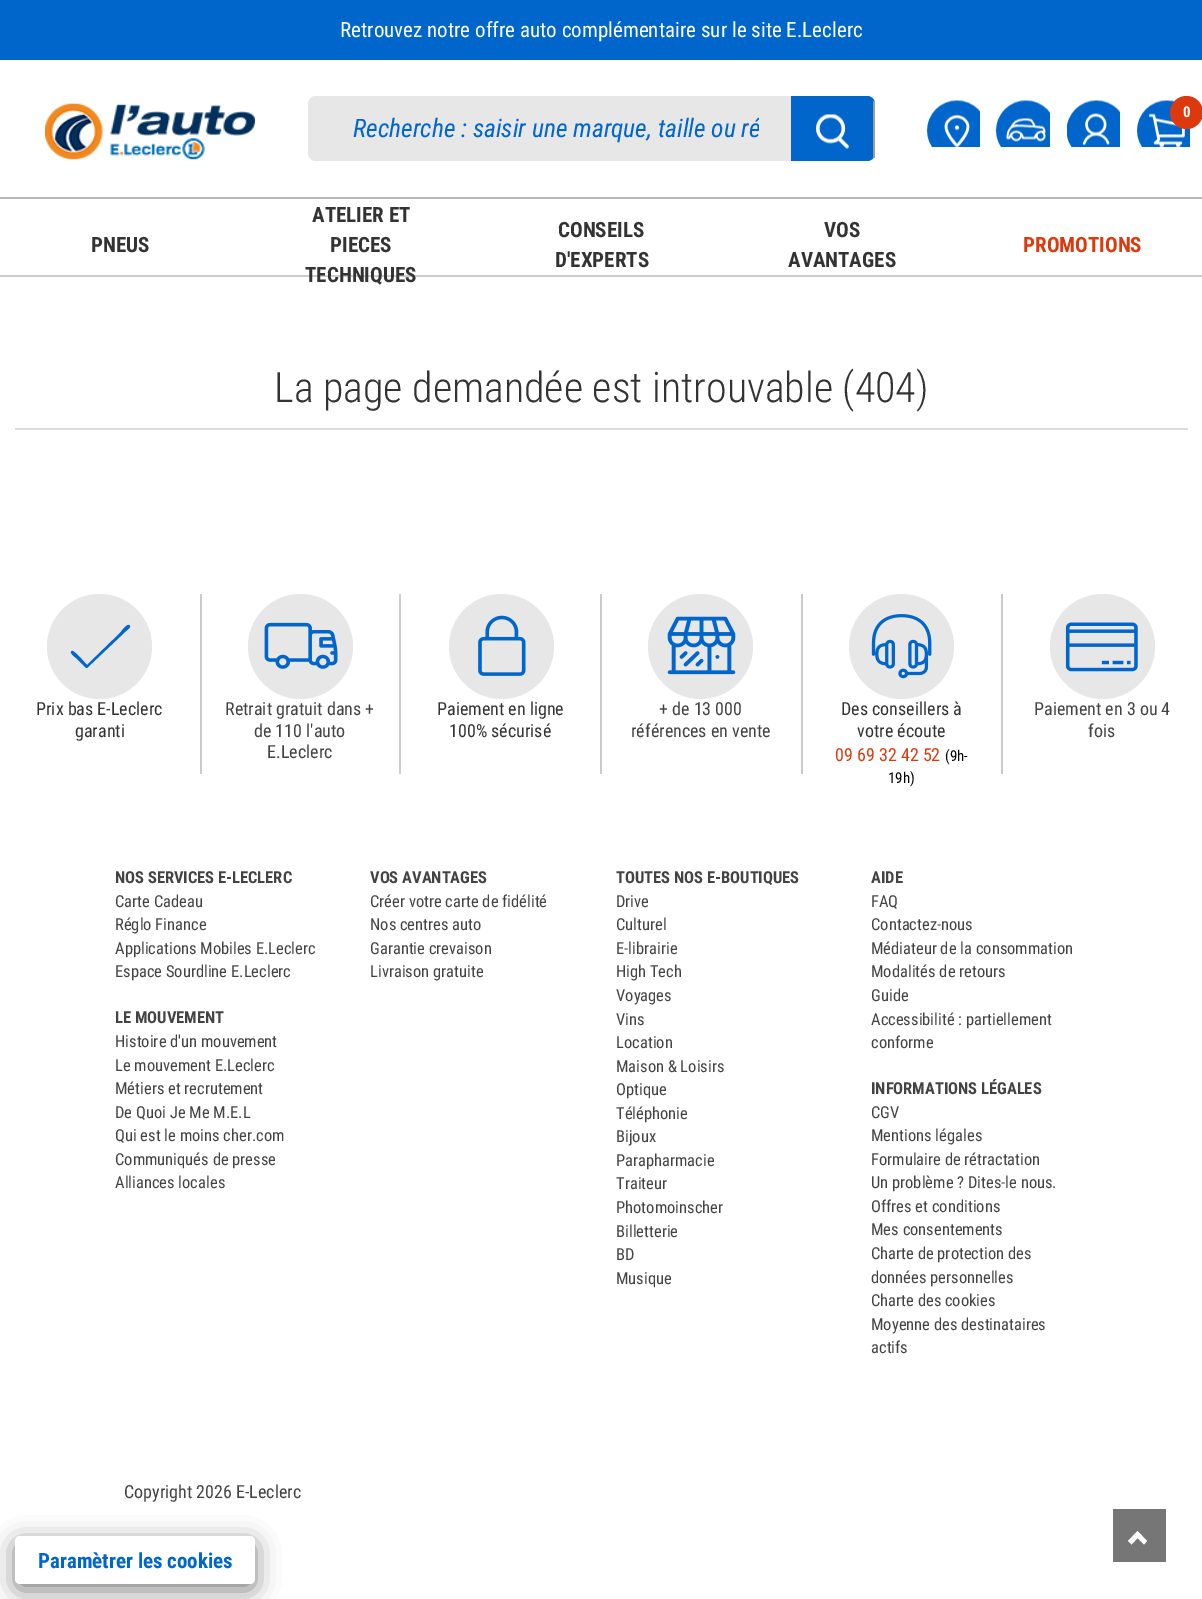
%!PS-Adobe-3.0
%%BoundingBox: 0 0 1202 1599
%%LanguageLevel: 3
%%Pages: 1
%%EndComments
%%BeginProlog
/setink { 3 { 255 div 3 1 roll } repeat setrgbcolor } def
/usefont { [ exch dup neg 0 0 3 -1 roll 0 0 ] selectfont } def
/drawtext { setink usefont moveto show } def
/fillbox { setink rectfill } def
/setalpha { dup .setfillconstantalpha .setstrokeconstantalpha } def
/disc { newpath 0 360 arc closepath } def
/rrect { 5 dict begin { /r /h /w /y /x } { exch def } forall
  x r add y moveto x w add y 2 copy h add r arct x w add y h add x 1 index r arct
  x y h add x y r arct x y 2 copy exch w add exch r arct closepath end } def
/softshadow { 12 dict begin { /a /b /q /h /w /y /x } { exch def } forall gsave /was 0 def
  9 -2 -9 { dup b mul 4 div /e exch def 1 sub .425 mul 2.718 exch exp 1 add a .99 .min exch div /now exch def
    1 1 now sub 1 was sub div sub setalpha /was now def
    w h .min e 2 mul add 0 gt { x e sub y e sub w e 2 mul add h e 2 mul add
      q e add b .6 mul add w h .min 2 div e add .min 0 .max rrect fill } if } for grestore end } def
/drawimage { 5 dict begin { /h /w /y /x /name } { exch def } forall
  gsave x y translate w h scale
  w h 8 [w 0 0 h 0 0] name (r) file false 3 colorimage grestore end } def
%%EndProlog
%%BeginSetup
<< /PageSize [1202 1599] /PageUsesTransparency true >> setpagedevice
%%EndSetup
%%Page: 1 1
0 .pushpdf14devicefilter
0 1599 translate 1 -1 scale
4 setmiterlimit
0 0 1202 1599 255 255 255 fillbox
0 0 1202 60 0 102 204 fillbox
(Retrouvez notre offre auto complémentaire sur le site E.Leclerc) 340 37 /RobotoCondensed-Regular 21 255 255 255 drawtext
(assets/img1.rgb) 45 103 210 57 drawimage
0 197 1202 2 182 183 184 fillbox
(assets/img2.rgb) 927 100 53 47 drawimage
(assets/img3.rgb) 996 100 54 47 drawimage
(assets/img4.rgb) 1067 100 53 47 drawimage
(assets/img5.rgb) 1137 100 53 47 drawimage
221 57 14 setink
1186.5 112.5 16.5 disc fill
(0) 1183 117 /RobotoCondensed-Bold 15 255 255 255 drawtext
231 231 231 setink
308 96 510 65 8 rrect fill
gsave
353 113 406 30 rectclip
(Recherche : saisir une marque, taille ou ré) 353 137 /RobotoCondensed-Italic 25.5 0 102 204 drawtext
grestore
0 102 204 setink
791 96 moveto 867 96 lineto 871.5 96 875 99.5 875 104 curveto 875 153 lineto 875 157.5 871.5 161 867 161 curveto 791 161 lineto closepath fill
873 101 2 57 155 155 155 fillbox
(assets/img6.rgb) 816 114 33 35 drawimage
0 275 1202 2 204 204 204 fillbox
(PNEUS) 91 252 /RobotoCondensed-Bold 21 51 51 51 drawtext
(ATELIER ET) 312 222 /RobotoCondensed-Bold 21 51 51 51 drawtext
(PIECES) 330 252 /RobotoCondensed-Bold 21 51 51 51 drawtext
(TECHNIQUES) 305 282 /RobotoCondensed-Bold 21 51 51 51 drawtext
(CONSEILS) 558 237 /RobotoCondensed-Bold 21 51 51 51 drawtext
(D'EXPERTS) 555 267 /RobotoCondensed-Bold 21 51 51 51 drawtext
(VOS) 824 237 /RobotoCondensed-Bold 21 51 51 51 drawtext
(AVANTAGES) 788 267 /RobotoCondensed-Bold 21 51 51 51 drawtext
(PROMOTIONS) 1023 252 /RobotoCondensed-Bold 21 221 57 14 drawtext
15 428 1173 2 221 221 221 fillbox
(La page demandée est introuvable \(404\)) 274 402 /RobotoCondensed-Light 42 51 51 51 drawtext
200 594 2 180 204 204 204 fillbox
231 231 231 setink
99.5 646.5 52.5 disc fill
0 102 204 setink
86 668 moveto 76 658 lineto 76 658 68 652 72 651 curveto 74 650 85 663 87 665 curveto 121 632 lineto 121 631 127 624 129 625 curveto 132 627 128 629 125 632 curveto 87 668 lineto closepath eofill
(Prix bas E-Leclerc) 36 715 /RobotoCondensed-Regular 18 51 51 51 drawtext
(garanti) 75 737 /RobotoCondensed-Regular 18 51 51 51 drawtext
399 594 2 180 204 204 204 fillbox
231 231 231 setink
300.5 646.5 52.5 disc fill
(assets/img7.rgb) 264 622 74 47 drawimage
(Retrait gratuit dans +) 225 715 /RobotoCondensed-Regular 18 67 67 67 drawtext
(de 110 l'auto) 254 737 /RobotoCondensed-Regular 18 67 67 67 drawtext
(E.Leclerc) 267 758 /RobotoCondensed-Regular 18 67 67 67 drawtext
600 594 2 180 204 204 204 fillbox
231 231 231 setink
501.5 646.5 52.5 disc fill
(assets/img8.rgb) 478 615 48 61 drawimage
(Paiement en ligne) 437 715 /RobotoCondensed-Regular 18 51 51 51 drawtext
(100% sécurisé) 449 737 /RobotoCondensed-Regular 18 51 51 51 drawtext
801 594 2 180 204 204 204 fillbox
231 231 231 setink
700.5 646.5 52.5 disc fill
(assets/img9.rgb) 667 616 69 59 drawimage
(+ de 13 000) 659 715 /RobotoCondensed-Regular 18 67 67 67 drawtext
(références en vente) 631 737 /RobotoCondensed-Regular 18 67 67 67 drawtext
1001 594 2 180 204 204 204 fillbox
231 231 231 setink
901.5 646.5 52.5 disc fill
(assets/img10.rgb) 871 614 61 65 drawimage
(Des conseillers à) 841 715 /RobotoCondensed-Regular 18 51 51 51 drawtext
(votre écoute) 857 737 /RobotoCondensed-Regular 18 51 51 51 drawtext
(09 69 32 42 52) 835 761 /RobotoCondensed-Regular 18 221 57 14 drawtext
(\(9h-) 945 761 /RobotoCondensed-Regular 15 0 0 0 drawtext
(19h\)) 888 783 /RobotoCondensed-Regular 15 0 0 0 drawtext
231 231 231 setink
1102.5 646.5 52.5 disc fill
(assets/img11.rgb) 1065 622 73 50 drawimage
(Paiement en 3 ou 4) 1034 715 /RobotoCondensed-Regular 18 67 67 67 drawtext
(fois) 1088 737 /RobotoCondensed-Regular 18 67 67 67 drawtext
(NOS SERVICES E-LECLERC) 115 883 /RobotoCondensed-Bold 16.5 67 67 67 drawtext
(Carte Cadeau) 115 907 /RobotoCondensed-Regular 16.5 67 67 67 drawtext
(Réglo Finance) 115 930 /RobotoCondensed-Regular 16.5 67 67 67 drawtext
(Applications Mobiles E.Leclerc) 115 954 /RobotoCondensed-Regular 16.5 67 67 67 drawtext
(Espace Sourdline E.Leclerc) 115 977 /RobotoCondensed-Regular 16.5 67 67 67 drawtext
(VOS AVANTAGES) 370 883 /RobotoCondensed-Bold 16.5 67 67 67 drawtext
(Créer votre carte de fidélité) 370 907 /RobotoCondensed-Regular 16.5 67 67 67 drawtext
(Nos centres auto) 370 930 /RobotoCondensed-Regular 16.5 67 67 67 drawtext
(Garantie crevaison) 370 954 /RobotoCondensed-Regular 16.5 67 67 67 drawtext
(Livraison gratuite) 370 977 /RobotoCondensed-Regular 16.5 67 67 67 drawtext
(LE MOUVEMENT) 115 1023 /RobotoCondensed-Bold 16.5 67 67 67 drawtext
(Histoire d'un mouvement) 115 1047 /RobotoCondensed-Regular 16.5 67 67 67 drawtext
(Le mouvement E.Leclerc) 115 1071 /RobotoCondensed-Regular 16.5 67 67 67 drawtext
(Métiers et recrutement) 115 1094 /RobotoCondensed-Regular 16.5 67 67 67 drawtext
(De Quoi Je Me M.E.L) 115 1118 /RobotoCondensed-Regular 16.5 67 67 67 drawtext
(Qui est le moins cher.com) 115 1141 /RobotoCondensed-Regular 16.5 67 67 67 drawtext
(Communiqués de presse) 115 1165 /RobotoCondensed-Regular 16.5 67 67 67 drawtext
(Alliances locales) 115 1188 /RobotoCondensed-Regular 16.5 67 67 67 drawtext
(TOUTES NOS E-BOUTIQUES) 616 883 /RobotoCondensed-Bold 16.5 67 67 67 drawtext
(Drive) 616 907 /RobotoCondensed-Regular 16.5 67 67 67 drawtext
(Culturel) 616 930 /RobotoCondensed-Regular 16.5 67 67 67 drawtext
(E-librairie) 616 954 /RobotoCondensed-Regular 16.5 67 67 67 drawtext
(High Tech) 616 977 /RobotoCondensed-Regular 16.5 67 67 67 drawtext
(Voyages) 616 1001 /RobotoCondensed-Regular 16.5 67 67 67 drawtext
(Vins) 616 1025 /RobotoCondensed-Regular 16.5 67 67 67 drawtext
(Location) 616 1048 /RobotoCondensed-Regular 16.5 67 67 67 drawtext
(Maison & Loisirs) 616 1072 /RobotoCondensed-Regular 16.5 67 67 67 drawtext
(Optique) 616 1095 /RobotoCondensed-Regular 16.5 67 67 67 drawtext
(Téléphonie) 616 1119 /RobotoCondensed-Regular 16.5 67 67 67 drawtext
(Bijoux) 616 1142 /RobotoCondensed-Regular 16.5 67 67 67 drawtext
(Parapharmacie) 616 1166 /RobotoCondensed-Regular 16.5 67 67 67 drawtext
(Traiteur) 616 1189 /RobotoCondensed-Regular 16.5 67 67 67 drawtext
(Photomoinscher) 616 1213 /RobotoCondensed-Regular 16.5 67 67 67 drawtext
(Billetterie) 616 1237 /RobotoCondensed-Regular 16.5 67 67 67 drawtext
(BD) 616 1260 /RobotoCondensed-Regular 16.5 67 67 67 drawtext
(Musique) 616 1284 /RobotoCondensed-Regular 16.5 67 67 67 drawtext
(AIDE) 871 883 /RobotoCondensed-Bold 16.5 67 67 67 drawtext
(FAQ) 871 907 /RobotoCondensed-Regular 16.5 67 67 67 drawtext
(Contactez-nous) 871 930 /RobotoCondensed-Regular 16.5 67 67 67 drawtext
(Médiateur de la consommation) 871 954 /RobotoCondensed-Regular 16.5 67 67 67 drawtext
(Modalités de retours) 871 977 /RobotoCondensed-Regular 16.5 67 67 67 drawtext
(Guide) 871 1001 /RobotoCondensed-Regular 16.5 67 67 67 drawtext
(Accessibilité : partiellement) 871 1025 /RobotoCondensed-Regular 16.5 67 67 67 drawtext
(conforme) 871 1048 /RobotoCondensed-Regular 16.5 67 67 67 drawtext
(INFORMATIONS LÉGALES) 871 1094 /RobotoCondensed-Bold 16.5 67 67 67 drawtext
(CGV) 871 1118 /RobotoCondensed-Regular 16.5 67 67 67 drawtext
(Mentions légales) 871 1141 /RobotoCondensed-Regular 16.5 67 67 67 drawtext
(Formulaire de rétractation) 871 1165 /RobotoCondensed-Regular 16.5 67 67 67 drawtext
(Un problème ? Dites-le nous.) 871 1188 /RobotoCondensed-Regular 16.5 67 67 67 drawtext
(Offres et conditions) 871 1212 /RobotoCondensed-Regular 16.5 67 67 67 drawtext
(Mes consentements) 871 1235 /RobotoCondensed-Regular 16.5 67 67 67 drawtext
(Charte de protection des) 871 1259 /RobotoCondensed-Regular 16.5 67 67 67 drawtext
(données personnelles) 871 1283 /RobotoCondensed-Regular 16.5 67 67 67 drawtext
(Charte des cookies) 871 1306 /RobotoCondensed-Regular 16.5 67 67 67 drawtext
(Moyenne des destinataires) 871 1330 /RobotoCondensed-Regular 16.5 67 67 67 drawtext
(actifs) 871 1353 /RobotoCondensed-Regular 16.5 67 67 67 drawtext
(Copyright 2026 E-Leclerc) 124 1498 /RobotoCondensed-Regular 18 67 67 67 drawtext
1113 1509 53 53 118 118 118 fillbox
255 255 255 setink
1147 1541 moveto 1144 1544.5 lineto 1137.5 1538 lineto 1131.5 1544.5 lineto 1128 1541 lineto 1137.5 1531 lineto closepath fill
0 0 0 setink
15 1542 240 48 5 12 0.5 softshadow
255 255 255 setink
15 1536 240 48 5 rrect fill
(Paramètrer les cookies) 38 1568 /RobotoCondensed-Bold 21 0 102 204 drawtext
.poppdf14devicefilter showpage
%%EOF
